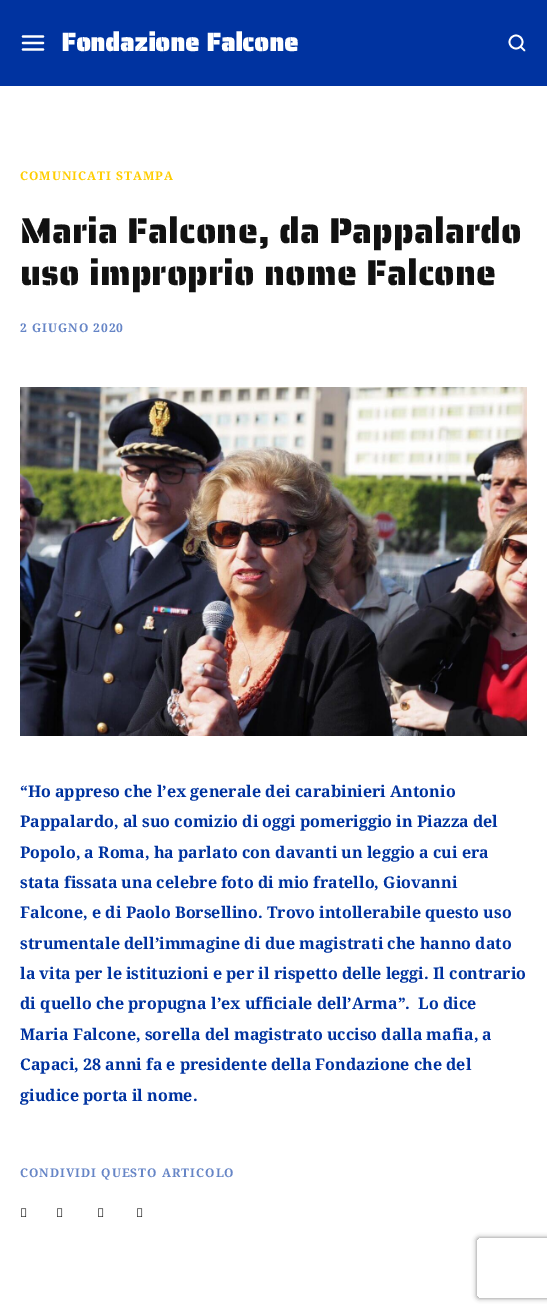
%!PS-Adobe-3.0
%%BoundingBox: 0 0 547 1312
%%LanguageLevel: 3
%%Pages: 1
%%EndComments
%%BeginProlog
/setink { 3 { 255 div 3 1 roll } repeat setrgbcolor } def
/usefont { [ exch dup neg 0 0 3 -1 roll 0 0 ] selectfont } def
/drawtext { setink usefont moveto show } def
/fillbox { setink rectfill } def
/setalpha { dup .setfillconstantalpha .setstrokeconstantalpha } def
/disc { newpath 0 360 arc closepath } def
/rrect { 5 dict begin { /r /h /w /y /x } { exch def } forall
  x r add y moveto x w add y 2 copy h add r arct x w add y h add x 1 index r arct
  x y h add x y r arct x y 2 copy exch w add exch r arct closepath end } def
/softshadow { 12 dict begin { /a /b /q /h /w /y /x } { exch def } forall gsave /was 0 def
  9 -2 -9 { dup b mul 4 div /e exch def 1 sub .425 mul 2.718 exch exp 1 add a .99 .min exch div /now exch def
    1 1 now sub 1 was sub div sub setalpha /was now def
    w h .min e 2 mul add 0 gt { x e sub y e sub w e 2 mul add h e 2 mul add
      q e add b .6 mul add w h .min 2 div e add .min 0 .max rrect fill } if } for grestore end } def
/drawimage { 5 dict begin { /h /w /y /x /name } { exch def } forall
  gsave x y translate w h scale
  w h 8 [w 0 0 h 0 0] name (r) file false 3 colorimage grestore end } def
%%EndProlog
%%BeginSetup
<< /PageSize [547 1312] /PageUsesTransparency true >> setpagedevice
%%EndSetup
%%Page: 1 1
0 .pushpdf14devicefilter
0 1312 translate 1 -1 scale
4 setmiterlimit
0 0 547 1312 255 255 255 fillbox
0 0 547 86 0 51 160 fillbox
255 255 255 setink
2.2 setlinewidth
1 setlinecap
1 setlinejoin
23 43 moveto 43 43 lineto 23 36.5 moveto 43 36.5 lineto 23 49.5 moveto 43 49.5 lineto stroke
(Fondazione Falcone) 61 51 /SairaStencilOne-Bold 25.5 255 255 255 drawtext
1.7 setlinewidth
0 setlinecap
0 setlinejoin
516 42 6.5 disc stroke
1 setlinecap
1 setlinejoin
524.5 50.5 moveto 521 47 lineto stroke
/NotoSerif-Bold 12 usefont
255 205 0 setink
20 180 moveto 1 0 (COMUNICATI STAMPA) ashow
(Maria Falcone, da Pappalardo) 20 243 /SairaStencilOne-Regular 36 17 17 17 drawtext
(uso improprio nome Falcone) 20 285 /SairaStencilOne-Regular 36 17 17 17 drawtext
/NotoSerif-Bold 12 usefont
102 133 198 setink
20 332 moveto 1 0 (2 GIUGNO 2020) ashow
(assets/img1.rgb) 20 387 507 349 drawimage
(“Ho appreso che l’ex generale dei carabinieri Antonio) 20 797 /NotoSerif-Bold 16 0 51 160 drawtext
(Pappalardo, al suo comizio di oggi pomeriggio in Piazza del) 20 827 /NotoSerif-Bold 16 0 51 160 drawtext
(Popolo, a Roma, ha parlato con davanti un leggio a cui era) 20 858 /NotoSerif-Bold 16 0 51 160 drawtext
(stata fissata una celebre foto di mio fratello, Giovanni) 20 888 /NotoSerif-Bold 16 0 51 160 drawtext
(Falcone, e di Paolo Borsellino. Trovo intollerabile questo uso) 20 918 /NotoSerif-Bold 16 0 51 160 drawtext
(strumentale dell’immagine di due magistrati che hanno dato) 20 949 /NotoSerif-Bold 16 0 51 160 drawtext
(la vita per le istituzioni e per il rispetto delle leggi. Il contrario) 20 979 /NotoSerif-Bold 16 0 51 160 drawtext
(di quello che propugna l’ex ufficiale dell’Arma”.  Lo dice) 20 1009 /NotoSerif-Bold 16 0 51 160 drawtext
(Maria Falcone, sorella del magistrato ucciso dalla mafia, a) 20 1040 /NotoSerif-Bold 16 0 51 160 drawtext
(Capaci, 28 anni fa e presidente della Fondazione che del) 20 1070 /NotoSerif-Bold 16 0 51 160 drawtext
(giudice porta il nome.) 20 1101 /NotoSerif-Bold 16 0 51 160 drawtext
/NotoSerif-Bold 12 usefont
102 133 198 setink
20 1177 moveto 1 0 (CONDIVIDI QUESTO ARTICOLO) ashow
(assets/img2.rgb) 21 1208 6 9 drawimage
(assets/img2.rgb) 57 1208 6 9 drawimage
(assets/img2.rgb) 98 1208 6 9 drawimage
(assets/img2.rgb) 137 1208 6 9 drawimage
gsave
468 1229 moveto 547 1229 lineto 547 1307 lineto 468 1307 lineto closepath 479 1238 moveto 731 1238 lineto 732 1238 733 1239 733 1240 curveto 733 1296 lineto 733 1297 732 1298 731 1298 curveto 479 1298 lineto 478 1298 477 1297 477 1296 curveto 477 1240 lineto 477 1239 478 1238 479 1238 curveto closepath eoclip newpath
128 128 128 setink
477 1238 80 60 2 2.5 1 softshadow
grestore
.poppdf14devicefilter showpage
%%EOF
